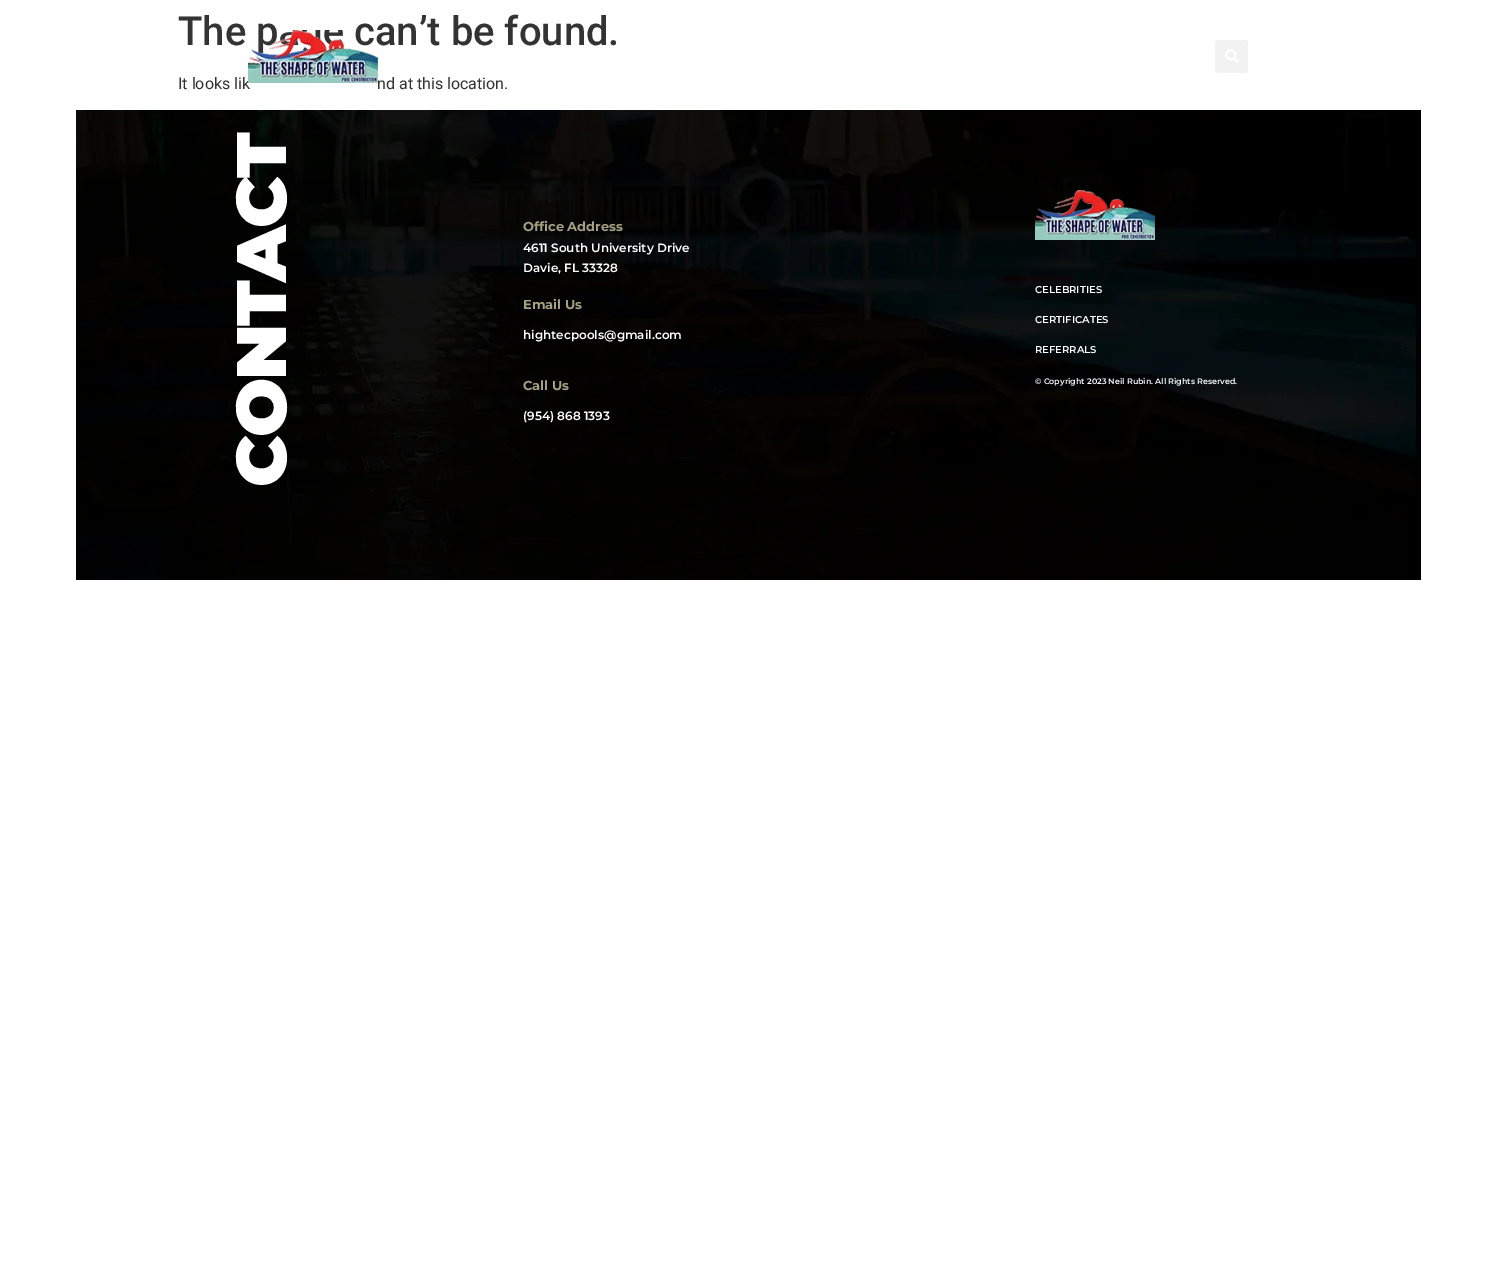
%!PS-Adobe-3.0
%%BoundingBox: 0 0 1496 1279
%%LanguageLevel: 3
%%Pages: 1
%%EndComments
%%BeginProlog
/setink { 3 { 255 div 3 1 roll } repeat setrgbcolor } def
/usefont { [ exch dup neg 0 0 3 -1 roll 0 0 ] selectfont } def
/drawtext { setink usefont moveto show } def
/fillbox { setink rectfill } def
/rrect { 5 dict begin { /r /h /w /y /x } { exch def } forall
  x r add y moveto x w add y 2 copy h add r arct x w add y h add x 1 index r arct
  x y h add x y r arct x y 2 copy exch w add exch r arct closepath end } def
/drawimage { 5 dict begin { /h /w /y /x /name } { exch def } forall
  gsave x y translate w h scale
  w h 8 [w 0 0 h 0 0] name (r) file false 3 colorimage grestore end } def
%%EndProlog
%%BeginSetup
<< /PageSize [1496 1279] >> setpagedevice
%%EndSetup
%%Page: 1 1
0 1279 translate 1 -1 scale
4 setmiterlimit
0 0 1496 1279 255 255 255 fillbox
(The p) 178 45 /Roboto-Medium 40 51 51 51 drawtext
(can’t be found.) 354 45 /Roboto-Medium 40 51 51 51 drawtext
(It looks lik) 178 89 /Roboto-Regular 16 51 51 51 drawtext
(nd at this location.) 377 89 /Roboto-Regular 16 51 51 51 drawtext
(assets/img1.rgb) 248 30 130 53 drawimage
242 242 242 setink
1215 40 33 33 3 rrect fill
(assets/img2.rgb) 1225 49 14 14 drawimage
(assets/img3.rgb) 76 110 1345 470 drawimage
/Montserrat-Black 70 usefont
255 255 255 setink
gsave 286 487 translate -90 rotate 0 0 moveto -2 0 (CONTACT) ashow grestore
(Office Address) 523 231 /Montserrat-Bold 13 166 161 131 drawtext
(4611 South University Drive) 523 252 /Montserrat-SemiBold 12 255 255 255 drawtext
(Davie, FL 33328) 523 272 /Montserrat-SemiBold 12 255 255 255 drawtext
(Email Us) 523 309 /Montserrat-Bold 13 166 161 131 drawtext
(hightecpools@gmail.com) 523 339 /Montserrat-SemiBold 12 255 255 255 drawtext
(Call Us) 523 390 /Montserrat-Bold 13 166 161 131 drawtext
(\(954\) 868 1393) 523 420 /Montserrat-SemiBold 12 255 255 255 drawtext
(assets/img4.rgb) 1035 190 120 50 drawimage
(CELEBRITIES) 1035 293 /Montserrat-SemiBold 10 255 255 255 drawtext
(CERTIFICATES) 1035 323 /Montserrat-SemiBold 10 255 255 255 drawtext
(REFERRALS) 1035 353 /Montserrat-SemiBold 10 255 255 255 drawtext
(© Copyright 2023 Neil Rubin. All Rights Reserved.) 1035 384 /Montserrat-SemiBold 8 255 255 255 drawtext
showpage
%%EOF
